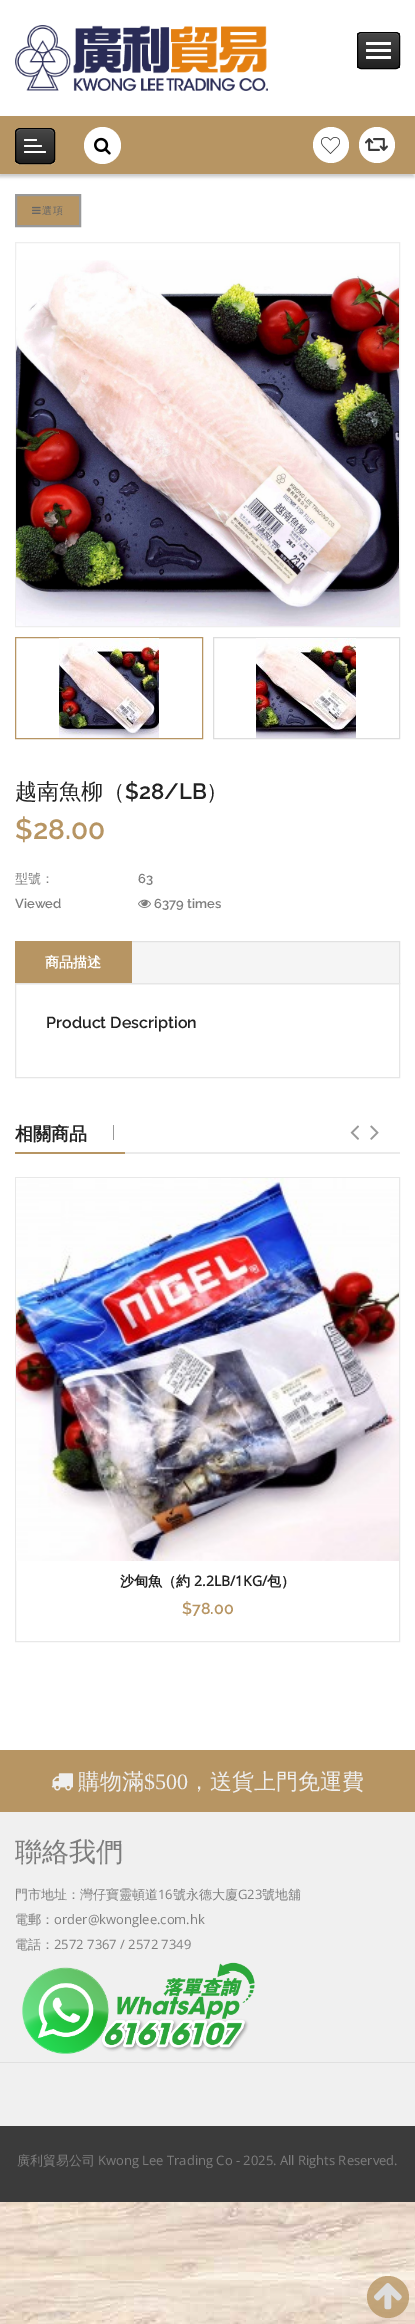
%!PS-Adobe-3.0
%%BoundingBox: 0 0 415 2324
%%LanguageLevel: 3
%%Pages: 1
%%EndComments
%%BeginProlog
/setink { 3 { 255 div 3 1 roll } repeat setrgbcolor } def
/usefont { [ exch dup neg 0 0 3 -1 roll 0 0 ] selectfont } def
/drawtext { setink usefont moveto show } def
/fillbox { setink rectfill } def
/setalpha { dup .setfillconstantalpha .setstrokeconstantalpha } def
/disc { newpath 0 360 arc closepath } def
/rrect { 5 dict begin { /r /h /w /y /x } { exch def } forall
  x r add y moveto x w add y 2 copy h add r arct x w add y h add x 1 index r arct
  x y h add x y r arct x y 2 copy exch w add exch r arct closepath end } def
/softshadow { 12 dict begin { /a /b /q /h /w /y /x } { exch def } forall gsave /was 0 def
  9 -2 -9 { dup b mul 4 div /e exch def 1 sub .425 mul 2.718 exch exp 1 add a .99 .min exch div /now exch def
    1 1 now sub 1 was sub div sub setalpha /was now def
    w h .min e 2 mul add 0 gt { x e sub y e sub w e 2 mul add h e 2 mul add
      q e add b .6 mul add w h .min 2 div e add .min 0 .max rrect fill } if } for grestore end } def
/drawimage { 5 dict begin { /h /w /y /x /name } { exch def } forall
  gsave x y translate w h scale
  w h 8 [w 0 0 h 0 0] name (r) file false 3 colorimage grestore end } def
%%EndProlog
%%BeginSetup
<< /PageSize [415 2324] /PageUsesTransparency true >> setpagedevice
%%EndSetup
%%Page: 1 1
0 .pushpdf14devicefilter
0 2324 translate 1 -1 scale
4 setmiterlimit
0 0 415 2324 255 255 255 fillbox
(assets/img1.rgb) 0 2202 415 122 drawimage
(assets/img2.rgb) 15 25 253 66 drawimage
gsave
357 32 43 37 4 rrect clip newpath
gsave 357 33 moveto 400 33 lineto 400 68 lineto 357 68 lineto closepath clip newpath
<< /ShadingType 2 /ColorSpace /DeviceRGB /Coords [379 33 379 68] /Extend [true true] /Function << /FunctionType 2 /Domain [0 1] /C0 [0.278 0.278 0.278] /C1 [0.129 0.129 0.129] /N 1 >> >> shfill grestore
grestore
107 107 107 setink
361 34 moveto 396 34 lineto 398 34 399 35 399 37 curveto 399 32 394 33 390 33 curveto 367 33 lineto 363 33 358 32 358 37 curveto 358 35 359 34 361 34 curveto closepath fill
0 0 0 setink
357.5 32.5 42 36 3.5 rrect stroke
255 255 255 setink
366 42 25 3 1 rrect fill
366 49 25 3 1 rrect fill
366 56 25 3 1 rrect fill
0 0 0 setink
-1 119 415 58 0 1.5 0.2 softshadow
0 116 415 58 183 149 99 fillbox
194 165 122 setink
15 159 moveto 15 166 20 165 25 165 curveto 45 165 lineto 50 165 55 166 55 159 curveto 55 162 53 164 50 164 curveto 20 164 lineto 17 164 15 162 15 159 curveto closepath fill
gsave
15 128 40 36 5 rrect clip newpath
gsave 15 129 moveto 55 129 lineto 55 163 lineto 15 163 lineto closepath clip newpath
<< /ShadingType 2 /ColorSpace /DeviceRGB /Coords [35 129 35 163] /Extend [true true] /Function << /FunctionType 2 /Domain [0 1] /C0 [0.278 0.278 0.278] /C1 [0.129 0.129 0.129] /N 1 >> >> shfill grestore
grestore
107 107 107 setink
20 130 moveto 50 130 lineto 52 130 54 132 54 134 curveto 54 128 49.5 129 45 129 curveto 25 129 lineto 20.5 129 16 128 16 134 curveto 16 132 18 130 20 130 curveto closepath fill
0 0 0 setink
15.5 128.5 39 35 4.5 rrect stroke
255 255 255 setink
24 139 13 2 1 rrect fill
24 145 18 2 1 rrect fill
24 151 22 2 1 rrect fill
102.5 145.5 18.5 disc fill
(assets/img3.rgb) 94 137 17 18 drawimage
331 145 18 disc fill
(assets/img4.rgb) 321 137 19 17 drawimage
377 145 18 disc fill
(assets/img5.rgb) 365 138 23 13 drawimage
183 149 99 setink
16 195 moveto 80 195 lineto 80 226 lineto 16 226 lineto closepath gsave fill grestore
153 153 153 setink
2 setlinewidth
stroke
(assets/img6.rgb) 32 206 9 8 drawimage
/WenQuanYiZenHei-Medium 10 usefont
102 102 102 setink
42 214 moveto 1 0 (選項) ashow
238 238 238 setink
1 setlinewidth
15.5 242.5 384 384 rectstroke
(assets/img7.rgb) 16 260 383 366 drawimage
183 149 99 setink
15.5 637.5 187 101 rectstroke
(assets/img8.rgb) 59 638 100 100 drawimage
221 221 221 setink
213.5 637.5 186 101 rectstroke
(assets/img9.rgb) 256 638 100 100 drawimage
(越南魚柳（) 15 799 /WenQuanYiZenHei-Medium 22 34 34 34 drawtext
($28/LB) 125 799 /Raleway-SemiBold 22 34 34 34 drawtext
(）) 206 799 /WenQuanYiZenHei-Medium 22 34 34 34 drawtext
($28.00) 15 839 /Raleway-SemiBold 28 183 149 99 drawtext
(型號：) 15 883 /WenQuanYiZenHei-Medium 13 125 125 125 drawtext
(63) 138 883 /Raleway-SemiBold 13 125 125 125 drawtext
(Viewed) 15 908 /Raleway-SemiBold 13 125 125 125 drawtext
(assets/img10.rgb) 138 899 13 9 drawimage
(6379 times) 154 908 /Raleway-SemiBold 13 125 125 125 drawtext
132 942 267 41 245 245 245 fillbox
225 225 225 setink
15.5 941.5 384 42 rectstroke
15 941 117 42 183 149 99 fillbox
(商品描述) 45 967 /WenQuanYiZenHei-Bold 14 255 255 255 drawtext
230 230 230 setink
15.5 983.5 384 94 rectstroke
(Product Description) 46 1028 /Raleway-SemiBold 16 34 34 34 drawtext
125 1152 275 2 235 235 235 fillbox
(相關商品) 15 1140 /WenQuanYiZenHei-Bold 18 34 34 34 drawtext
113 1125 1 15 153 153 153 fillbox
15 1152 110 2 183 149 99 fillbox
(assets/img11.rgb) 350 1125 9 15 drawimage
(assets/img12.rgb) 370 1125 9 15 drawimage
232 232 232 setink
15.5 1177.5 384 464 rectstroke
(assets/img13.rgb) 16 1178 383 383 drawimage
(沙甸魚（約) 120 1586 /WenQuanYiZenHei-Bold 14 34 34 34 drawtext
(2.2LB/1KG/) 194 1586 /OpenSans-Bold 14 34 34 34 drawtext
(包）) 267 1586 /WenQuanYiZenHei-Bold 14 34 34 34 drawtext
($78.00) 182 1614 /Raleway-SemiBold 16 183 149 99 drawtext
0 1812 415 314 240 240 240 fillbox
0 1750 415 62 183 149 99 fillbox
(assets/img14.rgb) 51 1773 22 18 drawimage
(購物滿) 78 1789 /WenQuanYiZenHei-Medium 22 239 239 239 drawtext
($500) 144 1789 /LiberationSerif-Regular 22 239 239 239 drawtext
(，送貨上門免運費) 188 1789 /WenQuanYiZenHei-Medium 22 239 239 239 drawtext
(聯絡我們) 15 1861 /WenQuanYiZenHei-Medium 27 125 125 125 drawtext
(門市地址：灣仔寶靈頓道) 15 1899 /WenQuanYiZenHei-Medium 13 125 125 125 drawtext
(16) 158 1899 /OpenSans-Regular 13 125 125 125 drawtext
(號永德大廈) 173 1899 /WenQuanYiZenHei-Medium 13 125 125 125 drawtext
(G23) 238 1899 /OpenSans-Regular 13 125 125 125 drawtext
(號地舖) 262 1899 /WenQuanYiZenHei-Medium 13 125 125 125 drawtext
(電郵：) 15 1924 /WenQuanYiZenHei-Medium 13 125 125 125 drawtext
(order@kwonglee.com.hk) 54 1924 /OpenSans-Regular 13 125 125 125 drawtext
(電話：) 15 1949 /WenQuanYiZenHei-Medium 13 125 125 125 drawtext
(2572 7367 / 2572 7349) 54 1949 /OpenSans-Regular 13 125 125 125 drawtext
(assets/img15.rgb) 22 1962 233 92 drawimage
0 2062 415 1 224 224 224 fillbox
0 2126 415 76 59 59 59 fillbox
(廣利貿易公司) 17 2165 /WenQuanYiZenHei-Medium 13 125 125 125 drawtext
(Kwong Lee Trading Co - 2025. All Rights Reserved.) 98 2165 /OpenSans-Regular 13 125 125 125 drawtext
0.8 setalpha
183 149 99 setink
388 2297 21 disc fill
1 setalpha
(assets/img16.rgb) 374 2283 28 27 drawimage
.poppdf14devicefilter showpage
%%EOF
